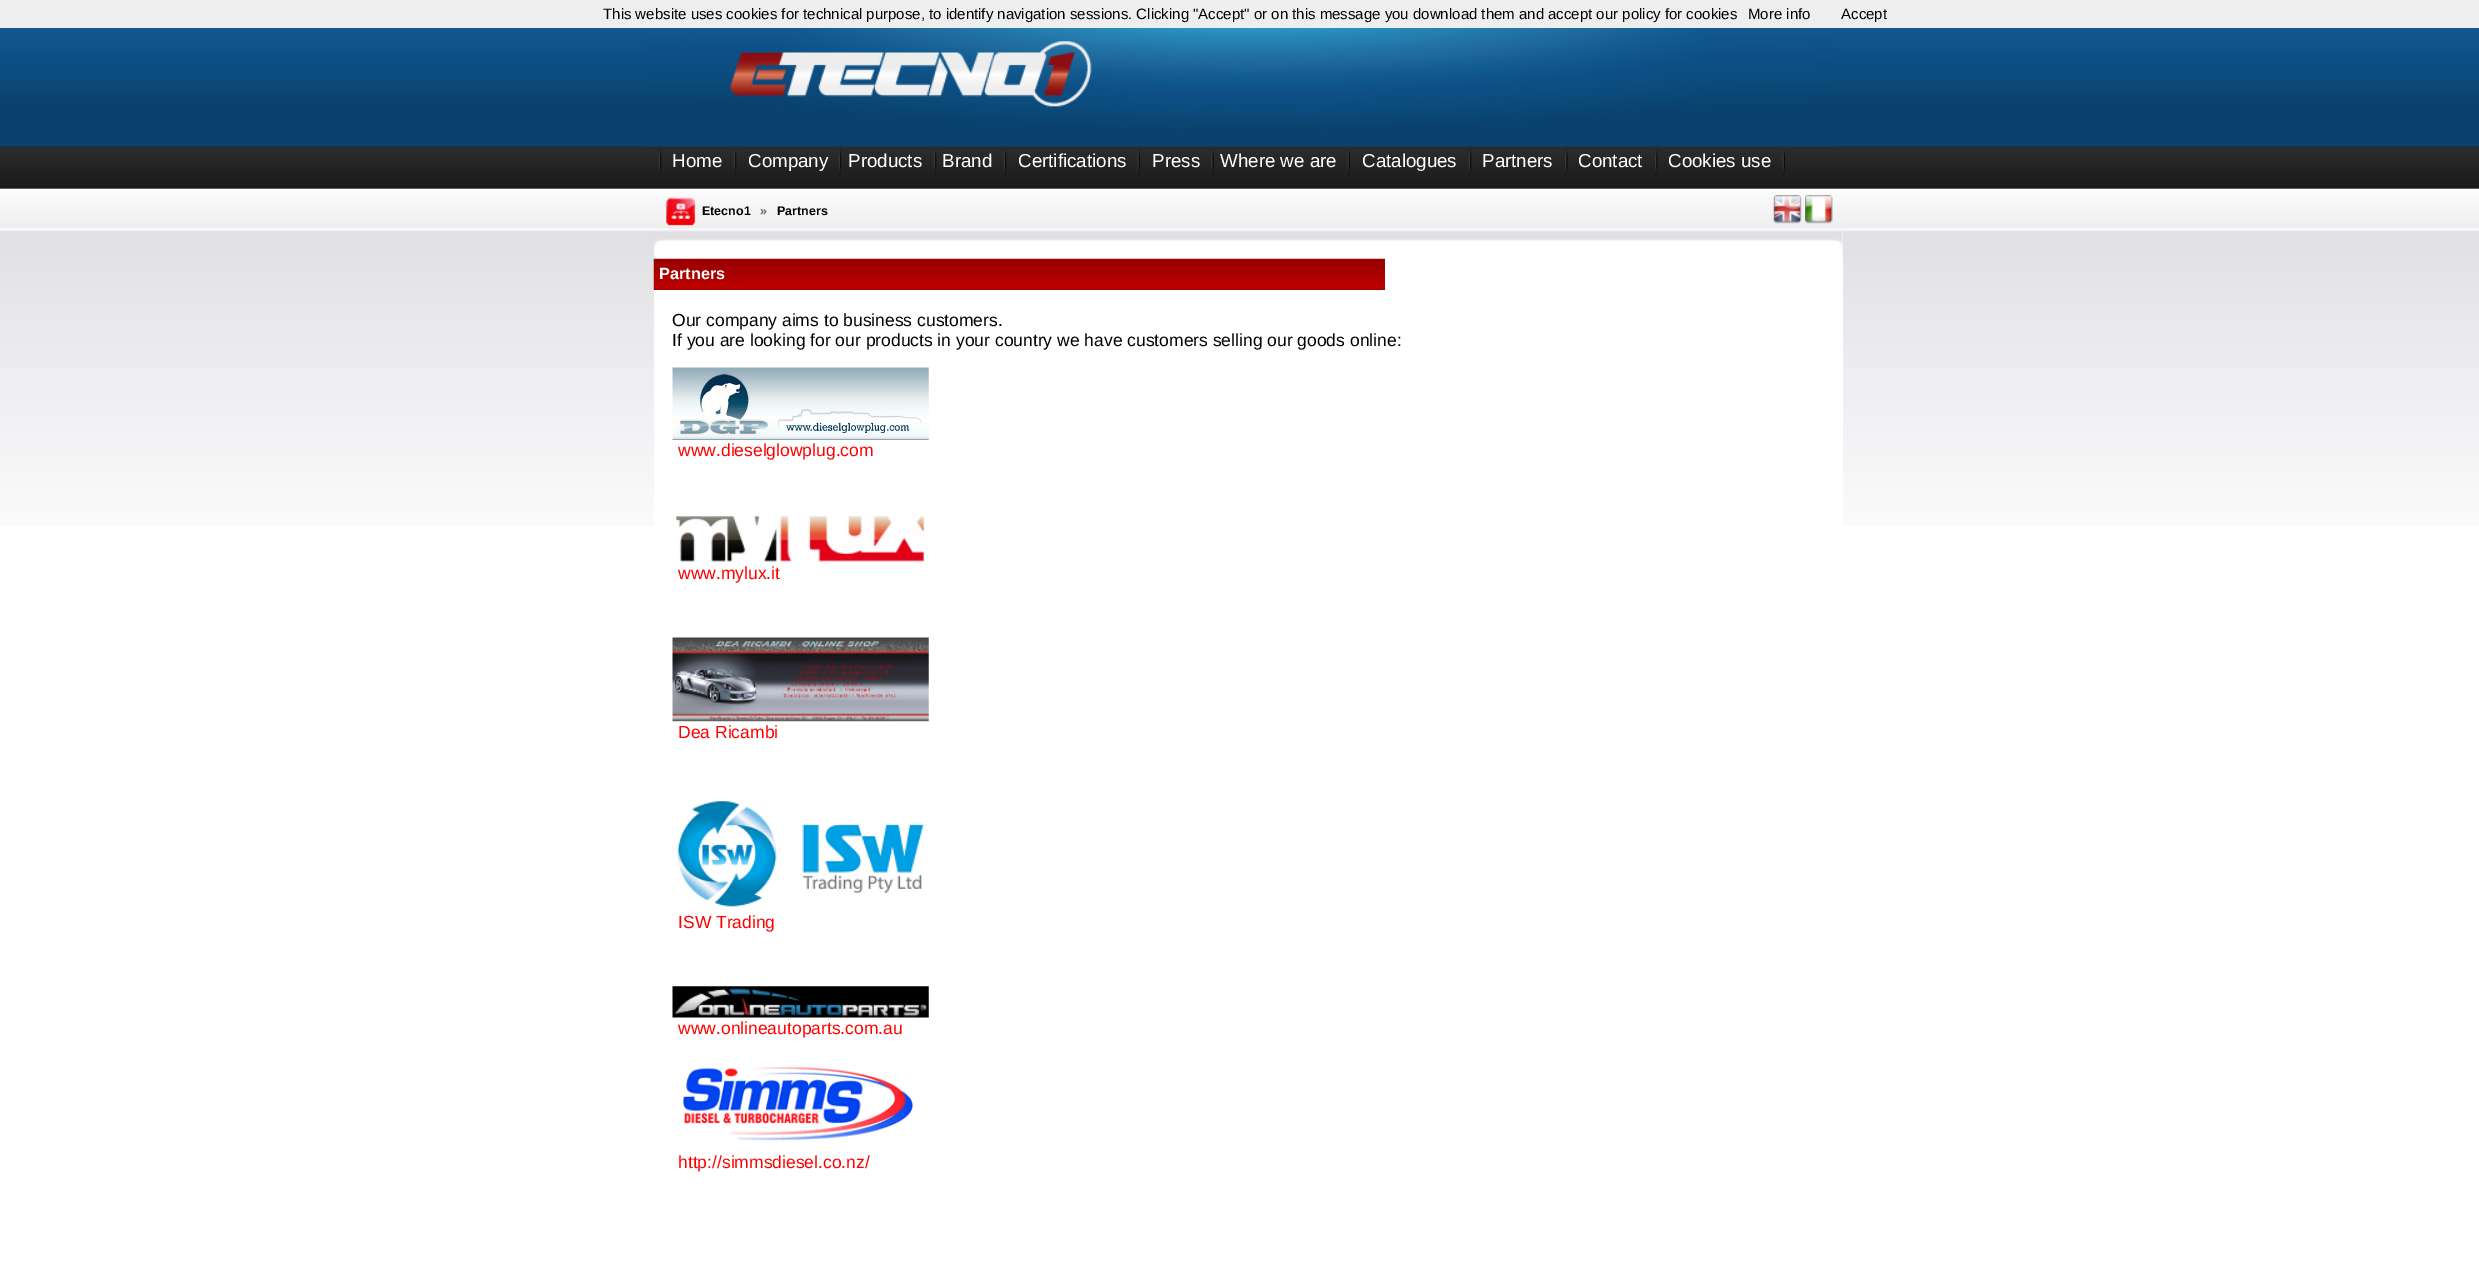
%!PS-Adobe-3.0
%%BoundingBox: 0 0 2479 1274
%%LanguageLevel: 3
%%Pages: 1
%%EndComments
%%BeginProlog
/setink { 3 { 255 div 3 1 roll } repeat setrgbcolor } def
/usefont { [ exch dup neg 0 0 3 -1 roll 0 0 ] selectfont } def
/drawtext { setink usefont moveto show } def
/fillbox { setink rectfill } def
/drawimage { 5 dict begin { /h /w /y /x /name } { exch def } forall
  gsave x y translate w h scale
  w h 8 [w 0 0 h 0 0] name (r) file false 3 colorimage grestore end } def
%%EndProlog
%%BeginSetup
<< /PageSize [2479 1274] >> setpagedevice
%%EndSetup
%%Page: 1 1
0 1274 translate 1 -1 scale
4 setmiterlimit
0 0 2479 1274 255 255 255 fillbox
(assets/img1.rgb) 0 28 2479 498 drawimage
0 0 2479 28 238 238 238 fillbox
(This website uses cookies for technical purpose, to identify navigation sessions. Clicking "Accept" or on this message you download them and accept our policy for cookies) 603 19 /LiberationSans-Regular 15 0 0 0 drawtext
(More info) 1748 19 /LiberationSans-Regular 15 0 0 0 drawtext
(Accept) 1841 19 /LiberationSans-Regular 15 0 0 0 drawtext
(assets/img2.rgb) 646 28 1189 119 drawimage
(assets/img3.rgb) 658 146 4 31 drawimage
(Home) 672 167 /LiberationSans-Regular 18.75 255 255 255 drawtext
(assets/img3.rgb) 733 146 4 31 drawimage
(Company) 748 167 /LiberationSans-Regular 18.75 255 255 255 drawtext
(assets/img3.rgb) 838 146 4 31 drawimage
(Products) 848 167 /LiberationSans-Regular 18.75 255 255 255 drawtext
(assets/img3.rgb) 933 146 4 31 drawimage
(Brand) 942 167 /LiberationSans-Regular 18.75 255 255 255 drawtext
(assets/img3.rgb) 1003 146 4 31 drawimage
(Certifications) 1018 167 /LiberationSans-Regular 18.75 255 255 255 drawtext
(assets/img4.rgb) 1137 146 3 31 drawimage
(Press) 1152 167 /LiberationSans-Regular 18.75 255 255 255 drawtext
(assets/img5.rgb) 1211 146 3 31 drawimage
(Where we are) 1220 167 /LiberationSans-Regular 18.75 255 255 255 drawtext
(assets/img4.rgb) 1347 146 3 31 drawimage
(Catalogues) 1362 167 /LiberationSans-Regular 18.75 255 255 255 drawtext
(assets/img3.rgb) 1468 146 4 31 drawimage
(Partners) 1482 167 /LiberationSans-Regular 18.75 255 255 255 drawtext
(assets/img6.rgb) 1565 146 3 31 drawimage
(Contact) 1578 167 /LiberationSans-Regular 18.75 255 255 255 drawtext
(assets/img6.rgb) 1655 146 3 31 drawimage
(Cookies use) 1668 167 /LiberationSans-Regular 18.75 255 255 255 drawtext
(assets/img4.rgb) 1782 146 3 31 drawimage
(assets/img7.rgb) 666 197 30 29 drawimage
(Etecno1) 702 215 /LiberationSans-Bold 12.5 0 0 0 drawtext
(») 760 215 /LiberationSans-Bold 12.5 102 102 102 drawtext
(Partners) 777 215 /LiberationSans-Bold 12.5 0 0 0 drawtext
(assets/img8.rgb) 1773 195 29 29 drawimage
(assets/img9.rgb) 1805 195 28 29 drawimage
654 231 1189 295 255 255 255 fillbox
(assets/img10.rgb) 653 231 1190 24 drawimage
(assets/img11.rgb) 653 258 732 32 drawimage
(Partners) 659 279 /LiberationSans-Bold 16.25 255 255 255 drawtext
(Our company aims to business customers.) 672 326 /LiberationSans-Regular 17.5 0 0 0 drawtext
(If you are looking for our products in your country we have customers selling our goods online:) 672 346 /LiberationSans-Regular 17.5 0 0 0 drawtext
(assets/img12.rgb) 672 367 257 73 drawimage
(www.dieselglowplug.com) 678 456 /LiberationSans-Regular 17.5 255 0 0 drawtext
(assets/img13.rgb) 676 515 249 48 drawimage
(www.mylux.it) 678 579 /LiberationSans-Regular 17.5 255 0 0 drawtext
(assets/img14.rgb) 672 637 257 85 drawimage
(Dea Ricambi) 678 738 /LiberationSans-Regular 17.5 255 0 0 drawtext
(assets/img15.rgb) 677 801 247 106 drawimage
(ISW Trading) 678 928 /LiberationSans-Regular 17.5 255 0 0 drawtext
(assets/img16.rgb) 672 986 257 32 drawimage
(www.onlineautoparts.com.au) 678 1034 /LiberationSans-Regular 17.5 255 0 0 drawtext
(assets/img17.rgb) 683 1066 231 75 drawimage
(http://simmsdiesel.co.nz/) 678 1168 /LiberationSans-Regular 17.5 255 0 0 drawtext
showpage
%%EOF
